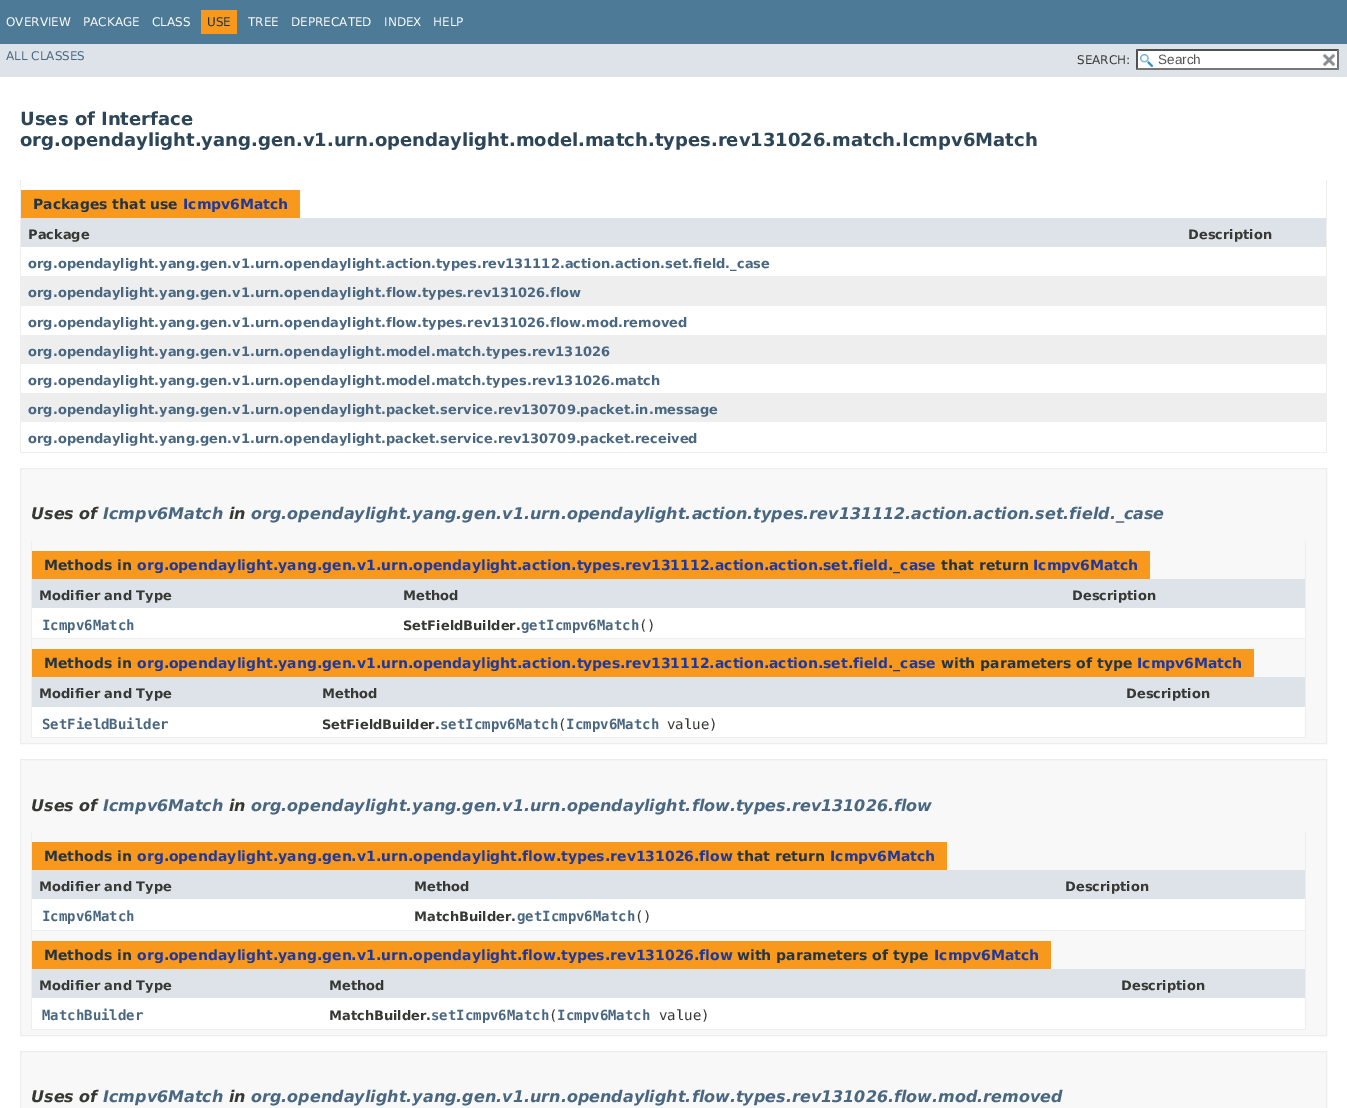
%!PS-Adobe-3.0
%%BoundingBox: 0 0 1347 1108
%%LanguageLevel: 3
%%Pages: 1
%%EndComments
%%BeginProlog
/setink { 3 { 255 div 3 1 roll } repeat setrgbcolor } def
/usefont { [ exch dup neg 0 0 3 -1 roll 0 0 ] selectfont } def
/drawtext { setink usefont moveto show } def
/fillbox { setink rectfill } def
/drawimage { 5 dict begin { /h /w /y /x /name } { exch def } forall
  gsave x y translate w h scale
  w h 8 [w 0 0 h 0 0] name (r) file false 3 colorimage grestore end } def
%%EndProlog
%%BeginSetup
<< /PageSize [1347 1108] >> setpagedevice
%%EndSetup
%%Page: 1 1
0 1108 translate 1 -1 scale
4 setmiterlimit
0 0 1347 1108 255 255 255 fillbox
0 0 1347 44 77 122 151 fillbox
(OVERVIEW) 6 26 /DejaVuSans-Regular 12 255 255 255 drawtext
(PACKAGE) 83 26 /DejaVuSans-Regular 12 255 255 255 drawtext
(CLASS) 152 26 /DejaVuSans-Regular 12 255 255 255 drawtext
201 10 36 24 248 152 29 fillbox
(USE) 207 26 /DejaVuSans-Regular 12 37 52 65 drawtext
(TREE) 248 26 /DejaVuSans-Regular 12 255 255 255 drawtext
(DEPRECATED) 291 26 /DejaVuSans-Regular 12 255 255 255 drawtext
(INDEX) 384 26 /DejaVuSans-Regular 12 255 255 255 drawtext
(HELP) 433 26 /DejaVuSans-Regular 12 255 255 255 drawtext
0 44 1347 33 222 227 233 fillbox
(ALL CLASSES) 6 60 /DejaVuSans-Regular 12 74 103 130 drawtext
(SEARCH:) 1077 64 /DejaVuSans-Regular 12 53 56 51 drawtext
1136 49 203 21 255 255 255 fillbox
(assets/img1.rgb) 1140 54 13 13 drawimage
79 79 79 setink
1136 49 moveto 1339 49 lineto 1337 51 lineto 1138 51 lineto closepath fill
118 118 118 setink
1339 49 moveto 1339 70 lineto 1337 68 lineto 1337 51 lineto closepath fill
1339 70 moveto 1136 70 lineto 1138 68 lineto 1337 68 lineto closepath fill
79 79 79 setink
1136 70 moveto 1136 49 lineto 1138 51 lineto 1138 68 lineto closepath fill
(Search) 1158 64 /LiberationSans-Regular 13.5 84 84 84 drawtext
(assets/img2.rgb) 1322 54 14 12 drawimage
(Uses of Interface) 20 125 /DejaVuSans-Bold 18 44 69 87 drawtext
(org.opendaylight.yang.gen.v1.urn.opendaylight.model.match.types.rev131026.match.Icmpv6Match) 20 146 /DejaVuSans-Bold 18 44 69 87 drawtext
1326 180 1 273 238 238 238 fillbox
20 452 1307 1 238 238 238 fillbox
20 180 1 273 238 238 238 fillbox
21 190 279 28 248 152 29 fillbox
(Packages that use) 33 209 /DejaVuSans-Bold 14 37 52 65 drawtext
(Icmpv6Match) 183 209 /DejaVuSans-Bold 14 31 56 156 drawtext
21 218 1305 29 222 227 233 fillbox
(Package) 28 239 /DejaVuSans-Bold 13 53 56 51 drawtext
(Description) 1188 239 /DejaVuSans-Bold 13 53 56 51 drawtext
(org.opendaylight.yang.gen.v1.urn.opendaylight.action.types.rev131112.action.action.set.field._case) 28 268 /DejaVuSans-Bold 13 74 103 130 drawtext
21 276 1305 30 238 238 239 fillbox
(org.opendaylight.yang.gen.v1.urn.opendaylight.flow.types.rev131026.flow) 28 297 /DejaVuSans-Bold 13 74 103 130 drawtext
(org.opendaylight.yang.gen.v1.urn.opendaylight.flow.types.rev131026.flow.mod.removed) 28 327 /DejaVuSans-Bold 13 74 103 130 drawtext
21 335 1305 29 238 238 239 fillbox
(org.opendaylight.yang.gen.v1.urn.opendaylight.model.match.types.rev131026) 28 356 /DejaVuSans-Bold 13 74 103 130 drawtext
(org.opendaylight.yang.gen.v1.urn.opendaylight.model.match.types.rev131026.match) 28 385 /DejaVuSans-Bold 13 74 103 130 drawtext
21 393 1305 29 238 238 239 fillbox
(org.opendaylight.yang.gen.v1.urn.opendaylight.packet.service.rev130709.packet.in.message) 28 414 /DejaVuSans-Bold 13 74 103 130 drawtext
(org.opendaylight.yang.gen.v1.urn.opendaylight.packet.service.rev130709.packet.received) 28 443 /DejaVuSans-Bold 13 74 103 130 drawtext
248 248 248 setink
20.5 468.5 moveto 1326.5 468.5 lineto 1326.5 743.5 lineto 20.5 743.5 lineto closepath gsave fill grestore
237 237 237 setink
stroke
(Uses of) 31 519 /DejaVuSans-BoldItalic 16 53 56 51 drawtext
(Icmpv6Match) 103 519 /DejaVuSans-BoldItalic 16 74 103 130 drawtext
(in) 229 519 /DejaVuSans-BoldItalic 16 53 56 51 drawtext
(org.opendaylight.yang.gen.v1.urn.opendaylight.action.types.rev131112.action.action.set.field._case) 251 519 /DejaVuSans-BoldItalic 16 74 103 130 drawtext
1305 541 1 197 238 238 238 fillbox
31 638 1275 1 238 238 238 fillbox
31 541 1 98 238 238 238 fillbox
32 551 1118 28 248 152 29 fillbox
(Methods in) 44 570 /DejaVuSans-Bold 14 37 52 65 drawtext
(org.opendaylight.yang.gen.v1.urn.opendaylight.action.types.rev131112.action.action.set.field._case) 137 570 /DejaVuSans-Bold 14 31 56 156 drawtext
(that return) 941 570 /DejaVuSans-Bold 14 37 52 65 drawtext
(Icmpv6Match) 1033 570 /DejaVuSans-Bold 14 31 56 156 drawtext
32 579 1273 29 222 227 233 fillbox
(Modifier and Type) 39 600 /DejaVuSans-Bold 13 53 56 51 drawtext
(Method) 403 600 /DejaVuSans-Bold 13 53 56 51 drawtext
(Description) 1072 600 /DejaVuSans-Bold 13 53 56 51 drawtext
32 608 1273 30 255 255 255 fillbox
(Icmpv6Match) 42 630 /DejaVuSansMono-Bold 14 74 103 130 drawtext
(SetFieldBuilder.) 403 630 /DejaVuSans-Bold 13 53 56 51 drawtext
(getIcmpv6Match) 521 630 /DejaVuSansMono-Bold 14 74 103 130 drawtext
(\(\)) 639 630 /DejaVuSansMono-Regular 14 53 56 51 drawtext
31 737 1275 1 238 238 238 fillbox
31 639 1 99 238 238 238 fillbox
32 649 1222 28 248 152 29 fillbox
(Methods in) 44 668 /DejaVuSans-Bold 14 37 52 65 drawtext
(org.opendaylight.yang.gen.v1.urn.opendaylight.action.types.rev131112.action.action.set.field._case) 137 668 /DejaVuSans-Bold 14 31 56 156 drawtext
(with parameters of type) 941 668 /DejaVuSans-Bold 14 37 52 65 drawtext
(Icmpv6Match) 1137 668 /DejaVuSans-Bold 14 31 56 156 drawtext
32 677 1273 30 222 227 233 fillbox
(Modifier and Type) 39 698 /DejaVuSans-Bold 13 53 56 51 drawtext
(Method) 322 698 /DejaVuSans-Bold 13 53 56 51 drawtext
(Description) 1126 698 /DejaVuSans-Bold 13 53 56 51 drawtext
32 707 1273 30 255 255 255 fillbox
(SetFieldBuilder) 42 729 /DejaVuSansMono-Bold 14 74 103 130 drawtext
(setIcmpv6Match Icmpv6Match) 440 729 /DejaVuSansMono-Bold 14 74 103 130 drawtext
(SetFieldBuilder.) 322 729 /DejaVuSans-Bold 13 53 56 51 drawtext
(\() 558 729 /DejaVuSansMono-Regular 14 53 56 51 drawtext
(value\)) 667 729 /DejaVuSansMono-Regular 14 53 56 51 drawtext
248 248 248 setink
20.5 759.5 moveto 1326.5 759.5 lineto 1326.5 1035.5 lineto 20.5 1035.5 lineto closepath gsave fill grestore
237 237 237 setink
stroke
(Uses of) 31 811 /DejaVuSans-BoldItalic 16 53 56 51 drawtext
(Icmpv6Match) 103 811 /DejaVuSans-BoldItalic 16 74 103 130 drawtext
(in) 229 811 /DejaVuSans-BoldItalic 16 53 56 51 drawtext
(org.opendaylight.yang.gen.v1.urn.opendaylight.flow.types.rev131026.flow) 251 811 /DejaVuSans-BoldItalic 16 74 103 130 drawtext
1305 832 1 198 238 238 238 fillbox
31 930 1275 1 238 238 238 fillbox
31 832 1 99 238 238 238 fillbox
32 842 915 28 248 152 29 fillbox
(Methods in) 44 861 /DejaVuSans-Bold 14 37 52 65 drawtext
(org.opendaylight.yang.gen.v1.urn.opendaylight.flow.types.rev131026.flow) 137 861 /DejaVuSans-Bold 14 31 56 156 drawtext
(that return) 737 861 /DejaVuSans-Bold 14 37 52 65 drawtext
(Icmpv6Match) 830 861 /DejaVuSans-Bold 14 31 56 156 drawtext
32 870 1273 29 222 227 233 fillbox
(Modifier and Type) 39 891 /DejaVuSans-Bold 13 53 56 51 drawtext
(Method) 414 891 /DejaVuSans-Bold 13 53 56 51 drawtext
(Description) 1065 891 /DejaVuSans-Bold 13 53 56 51 drawtext
32 899 1273 31 255 255 255 fillbox
(Icmpv6Match) 42 921 /DejaVuSansMono-Bold 14 74 103 130 drawtext
(MatchBuilder.) 414 921 /DejaVuSans-Bold 13 53 56 51 drawtext
(getIcmpv6Match) 517 921 /DejaVuSansMono-Bold 14 74 103 130 drawtext
(\(\)) 635 921 /DejaVuSansMono-Regular 14 53 56 51 drawtext
31 1029 1275 1 238 238 238 fillbox
31 931 1 99 238 238 238 fillbox
32 941 1019 28 248 152 29 fillbox
(Methods in) 44 960 /DejaVuSans-Bold 14 37 52 65 drawtext
(org.opendaylight.yang.gen.v1.urn.opendaylight.flow.types.rev131026.flow) 137 960 /DejaVuSans-Bold 14 31 56 156 drawtext
(with parameters of type) 737 960 /DejaVuSans-Bold 14 37 52 65 drawtext
(Icmpv6Match) 934 960 /DejaVuSans-Bold 14 31 56 156 drawtext
32 969 1273 29 222 227 233 fillbox
(Modifier and Type) 39 990 /DejaVuSans-Bold 13 53 56 51 drawtext
(Method) 329 990 /DejaVuSans-Bold 13 53 56 51 drawtext
(Description) 1121 990 /DejaVuSans-Bold 13 53 56 51 drawtext
32 998 1273 31 255 255 255 fillbox
(MatchBuilder) 42 1020 /DejaVuSansMono-Bold 14 74 103 130 drawtext
(setIcmpv6Match Icmpv6Match) 431 1020 /DejaVuSansMono-Bold 14 74 103 130 drawtext
(MatchBuilder.) 329 1020 /DejaVuSans-Bold 13 53 56 51 drawtext
(\() 549 1020 /DejaVuSansMono-Regular 14 53 56 51 drawtext
(value\)) 659 1020 /DejaVuSansMono-Regular 14 53 56 51 drawtext
248 248 248 setink
20.5 1051.5 moveto 1326.5 1051.5 lineto 1326.5 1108.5 lineto 20.5 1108.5 lineto closepath gsave fill grestore
237 237 237 setink
stroke
(Uses of) 31 1102 /DejaVuSans-BoldItalic 16 53 56 51 drawtext
(Icmpv6Match) 103 1102 /DejaVuSans-BoldItalic 16 74 103 130 drawtext
(in) 229 1102 /DejaVuSans-BoldItalic 16 53 56 51 drawtext
(org.opendaylight.yang.gen.v1.urn.opendaylight.flow.types.rev131026.flow.mod.removed) 251 1102 /DejaVuSans-BoldItalic 16 74 103 130 drawtext
showpage
%%EOF
